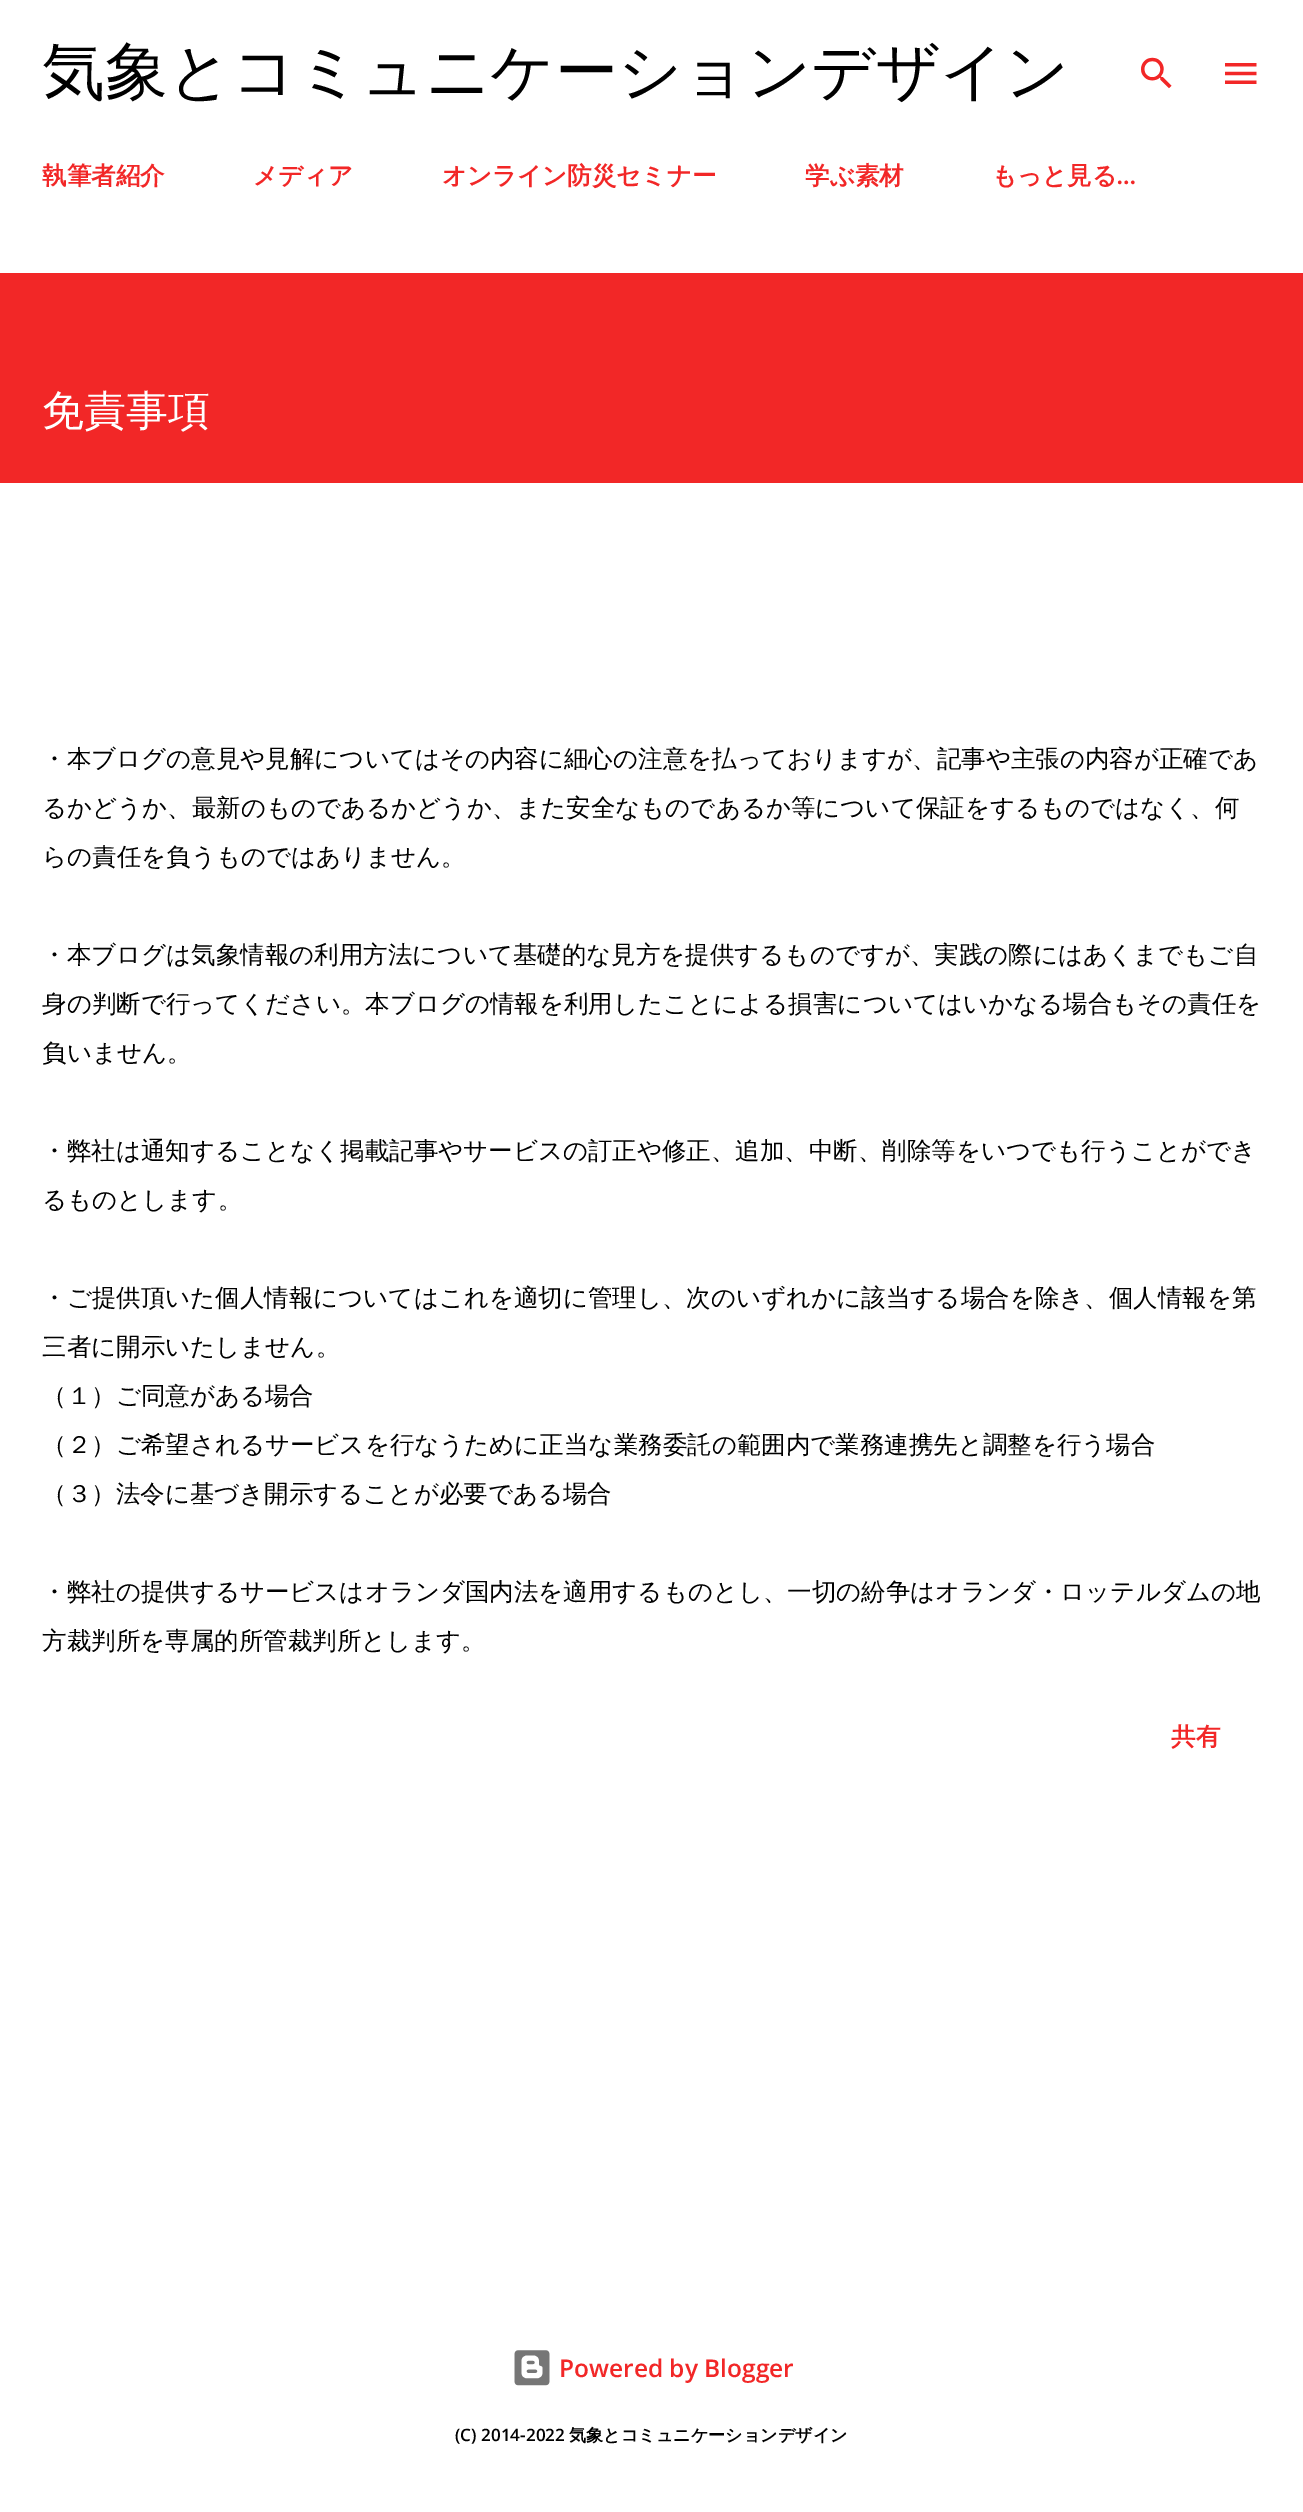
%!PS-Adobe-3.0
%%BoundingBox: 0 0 1303 2512
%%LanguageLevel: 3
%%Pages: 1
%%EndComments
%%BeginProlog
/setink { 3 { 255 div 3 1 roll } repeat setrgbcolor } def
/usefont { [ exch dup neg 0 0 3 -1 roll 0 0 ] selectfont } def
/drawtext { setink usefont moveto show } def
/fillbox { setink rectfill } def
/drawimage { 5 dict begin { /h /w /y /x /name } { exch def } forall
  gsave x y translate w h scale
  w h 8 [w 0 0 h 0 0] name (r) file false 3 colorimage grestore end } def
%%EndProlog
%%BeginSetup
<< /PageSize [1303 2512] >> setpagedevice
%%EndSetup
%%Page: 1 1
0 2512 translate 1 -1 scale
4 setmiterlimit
0 0 1303 2512 255 255 255 fillbox
(気象とコミュニケーションデザイン) 42 93 /WenQuanYiZenHei-Medium 63 0 0 0 drawtext
(assets/img1.rgb) 1141 57 31 32 drawimage
(assets/img2.rgb) 1225 63 32 21 drawimage
(執筆者紹介) 42 184 /WenQuanYiZenHei-Bold 24.5 242 39 39 drawtext
(メディア) 253 184 /WenQuanYiZenHei-Bold 24.5 242 39 39 drawtext
(オンライン防災セミナー) 442 184 /WenQuanYiZenHei-Bold 24.5 242 39 39 drawtext
(学ぶ素材) 805 184 /WenQuanYiZenHei-Bold 24.5 242 39 39 drawtext
(もっと見る) 992 184 /WenQuanYiZenHei-Bold 24.5 242 39 39 drawtext
(…) 1117 184 /Lato-Bold 24.5 242 39 39 drawtext
0 273 1303 210 242 39 39 fillbox
(免責事項) 42 425 /WenQuanYiZenHei-Medium 42 255 255 255 drawtext
(・本ブログの意見や見解についてはその内容に細心の注意を払っておりますが、記事や主張の内容が正確であ) 42 767 /WenQuanYiZenHei-Medium 24.5 0 0 0 drawtext
(るかどうか、最新のものであるかどうか、また安全なものであるか等について保証をするものではなく、何) 42 816 /WenQuanYiZenHei-Medium 24.5 0 0 0 drawtext
(らの責任を負うものではありません。) 42 865 /WenQuanYiZenHei-Medium 24.5 0 0 0 drawtext
(・本ブログは気象情報の利用方法について基礎的な見方を提供するものですが、実践の際にはあくまでもご自) 42 963 /WenQuanYiZenHei-Medium 24.5 0 0 0 drawtext
(身の判断で行ってください。本ブログの情報を利用したことによる損害についてはいかなる場合もその責任を) 42 1012 /WenQuanYiZenHei-Medium 24.5 0 0 0 drawtext
(負いません。) 42 1061 /WenQuanYiZenHei-Medium 24.5 0 0 0 drawtext
(・弊社は通知することなく掲載記事やサービスの訂正や修正、追加、中断、削除等をいつでも行うことができ) 42 1159 /WenQuanYiZenHei-Medium 24.5 0 0 0 drawtext
(るものとします。) 42 1208 /WenQuanYiZenHei-Medium 24.5 0 0 0 drawtext
(・ご提供頂いた個人情報についてはこれを適切に管理し、次のいずれかに該当する場合を除き、個人情報を第) 42 1306 /WenQuanYiZenHei-Medium 24.5 0 0 0 drawtext
(三者に開示いたしません。) 42 1355 /WenQuanYiZenHei-Medium 24.5 0 0 0 drawtext
(（１）ご同意がある場合) 42 1404 /WenQuanYiZenHei-Medium 24.5 0 0 0 drawtext
(（２）ご希望されるサービスを行なうために正当な業務委託の範囲内で業務連携先と調整を行う場合) 42 1453 /WenQuanYiZenHei-Medium 24.5 0 0 0 drawtext
(（３）法令に基づき開示することが必要である場合) 42 1502 /WenQuanYiZenHei-Medium 24.5 0 0 0 drawtext
(・弊社の提供するサービスはオランダ国内法を適用するものとし、一切の紛争はオランダ・ロッテルダムの地) 42 1600 /WenQuanYiZenHei-Medium 24.5 0 0 0 drawtext
(方裁判所を専属的所管裁判所とします。) 42 1649 /WenQuanYiZenHei-Medium 24.5 0 0 0 drawtext
(共有) 1171 1745 /WenQuanYiZenHei-Bold 24.5 242 39 39 drawtext
(assets/img3.rgb) 514 2350 36 36 drawimage
(Powered by Blogger) 559 2377 /OpenSans-SemiBold 24.5 242 39 39 drawtext
(\(C\) 2014-2022) 455 2441 /OpenSans-SemiBold 17.1 0 0 0 drawtext
(気象とコミュニケーションデザイン) 569 2441 /WenQuanYiZenHei-Bold 17.1 0 0 0 drawtext
showpage
%%EOF
